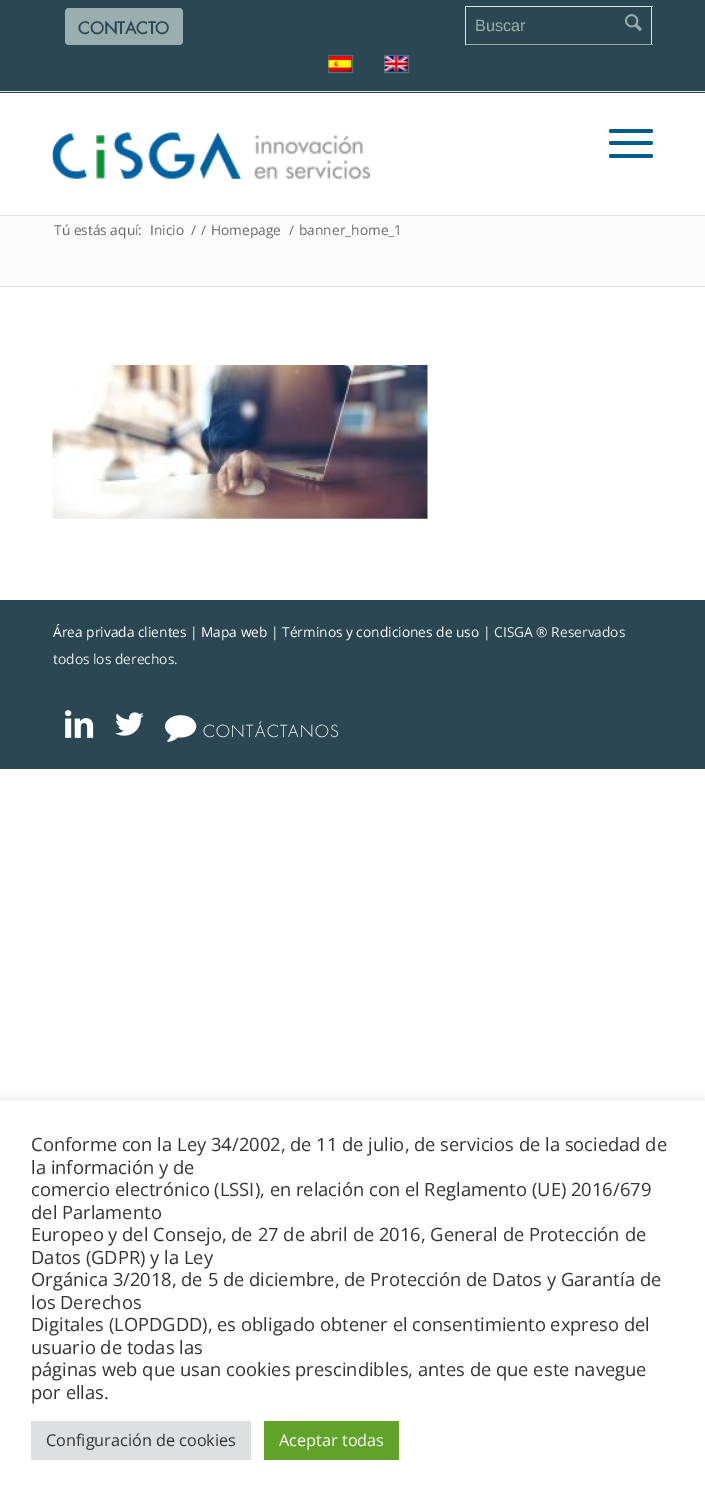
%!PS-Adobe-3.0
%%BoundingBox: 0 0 705 1497
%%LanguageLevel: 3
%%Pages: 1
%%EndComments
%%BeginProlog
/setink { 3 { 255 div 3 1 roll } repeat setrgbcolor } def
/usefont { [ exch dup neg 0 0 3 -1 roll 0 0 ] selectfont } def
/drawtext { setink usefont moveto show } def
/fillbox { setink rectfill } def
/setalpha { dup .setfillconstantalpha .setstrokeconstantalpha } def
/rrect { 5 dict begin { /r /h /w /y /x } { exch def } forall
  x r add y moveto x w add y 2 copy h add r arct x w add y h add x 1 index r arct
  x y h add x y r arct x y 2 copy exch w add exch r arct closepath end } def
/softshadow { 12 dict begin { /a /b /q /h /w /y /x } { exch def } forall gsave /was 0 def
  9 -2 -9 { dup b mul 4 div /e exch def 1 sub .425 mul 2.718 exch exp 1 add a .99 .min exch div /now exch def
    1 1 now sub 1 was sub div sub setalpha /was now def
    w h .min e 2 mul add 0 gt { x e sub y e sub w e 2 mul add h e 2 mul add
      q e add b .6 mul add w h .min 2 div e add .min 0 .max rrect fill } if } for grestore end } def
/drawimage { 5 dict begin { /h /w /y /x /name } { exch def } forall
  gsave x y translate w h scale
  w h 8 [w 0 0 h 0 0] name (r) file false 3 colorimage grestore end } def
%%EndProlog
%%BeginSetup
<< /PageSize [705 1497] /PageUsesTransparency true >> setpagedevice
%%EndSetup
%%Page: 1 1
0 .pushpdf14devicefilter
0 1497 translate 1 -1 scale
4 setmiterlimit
0 0 705 1497 255 255 255 fillbox
0 0 705 93 43 71 83 fillbox
0 91 705 1 225 225 225 fillbox
154 174 175 setink
65 8 118 37 4 rrect fill
(CONTACTO) 78 34 /Futura-Bold 16.25 43 71 83 drawtext
85 108 117 setink
328.5 55.5 24 17 rectstroke
(assets/img1.rgb) 328 56 24 16 drawimage
384.5 55.5 24 17 rectstroke
(assets/img2.rgb) 384 56 25 16 drawimage
465 6 188 1 225 225 225 fillbox
651 6 1 39 225 225 225 fillbox
465 44 188 1 154 174 175 fillbox
465 6 1 39 225 225 225 fillbox
(Buscar) 475 31 /LiberationSans-Regular 16.25 154 174 175 drawtext
(assets/img3.rgb) 625 14 17 17 drawimage
0 215 705 1 225 225 225 fillbox
(assets/img4.rgb) 52 132 318 47 drawimage
0 92 141 setink
609 141 44 4 2 rrect fill
609 129 44 4 2 rrect fill
609 154 44 4 2 rrect fill
0 216 705 70 252 252 252 fillbox
(Tú estás aquí:) 54 235 /OpenSans-Regular 13.75 102 102 102 drawtext
(Inicio) 150 235 /OpenSans-Regular 13.75 102 102 102 drawtext
(/) 191 235 /OpenSans-Regular 13.75 102 102 102 drawtext
(/) 201 235 /OpenSans-Regular 13.75 102 102 102 drawtext
(Homepage) 211 235 /OpenSans-Regular 13.75 102 102 102 drawtext
(/) 289 235 /OpenSans-Regular 13.75 102 102 102 drawtext
(banner_home_1) 299 235 /OpenSans-Regular 13.75 102 102 102 drawtext
0 286 705 1 225 225 225 fillbox
(assets/img5.rgb) 52 365 376 154 drawimage
0 600 705 169 43 71 83 fillbox
(Área privada clientes) 53 637 /OpenSans-Regular 13.75 255 255 255 drawtext
(|) 190 637 /OpenSans-Regular 13.75 238 238 238 drawtext
(Mapa web) 201 637 /OpenSans-Regular 13.75 255 255 255 drawtext
(|) 271 637 /OpenSans-Regular 13.75 238 238 238 drawtext
(Términos y condiciones de uso) 282 637 /OpenSans-Regular 13.75 255 255 255 drawtext
(| CISGA ® Reservados) 483 637 /OpenSans-Regular 13.75 238 238 238 drawtext
(todos los derechos.) 53 664 /OpenSans-Regular 13.75 238 238 238 drawtext
(assets/img6.rgb) 65 710 29 28 drawimage
(assets/img7.rgb) 115 712 29 24 drawimage
(assets/img8.rgb) 165 715 32 27 drawimage
/Futura-Light 16.25 usefont
255 255 255 setink
203 737 moveto 1.25 0 (CONTÁCTANOS) ashow
172 171 171 setink
0 1100 705 396 0 6 0.3 softshadow
0 1101 705 396 255 255 255 fillbox
(Conforme con la Ley 34/2002, de 11 de julio, de servicios de la sociedad de) 31 1151 /OpenSans-Regular 18.35 51 51 51 drawtext
(la información y de) 31 1174 /OpenSans-Regular 18.35 51 51 51 drawtext
(comercio electrónico \(LSSI\), en relación con el Reglamento \(UE\) 2016/679) 31 1196 /OpenSans-Regular 18.35 51 51 51 drawtext
(del Parlamento) 31 1219 /OpenSans-Regular 18.35 51 51 51 drawtext
(Europeo y del Consejo, de 27 de abril de 2016, General de Protección de) 31 1241 /OpenSans-Regular 18.35 51 51 51 drawtext
(Datos \(GDPR\) y la Ley) 31 1264 /OpenSans-Regular 18.35 51 51 51 drawtext
(Orgánica 3/2018, de 5 de diciembre, de Protección de Datos y Garantía de) 31 1286 /OpenSans-Regular 18.35 51 51 51 drawtext
(los Derechos) 31 1309 /OpenSans-Regular 18.35 51 51 51 drawtext
(Digitales \(LOPDGDD\), es obligado obtener el consentimiento expreso del) 31 1331 /OpenSans-Regular 18.35 51 51 51 drawtext
(usuario de todas las) 31 1354 /OpenSans-Regular 18.35 51 51 51 drawtext
(páginas web que usan cookies prescindibles, antes de que este navegue) 31 1376 /OpenSans-Regular 18.35 51 51 51 drawtext
(por ellas.) 31 1399 /OpenSans-Regular 18.35 51 51 51 drawtext
31 1421 220 39 222 223 224 fillbox
(Configuración de cookies) 46 1446 /OpenSans-Regular 16.25 51 51 51 drawtext
264 1421 135 39 97 162 41 fillbox
(Aceptar todas) 279 1446 /OpenSans-Regular 16.25 255 255 255 drawtext
.poppdf14devicefilter showpage
%%EOF
